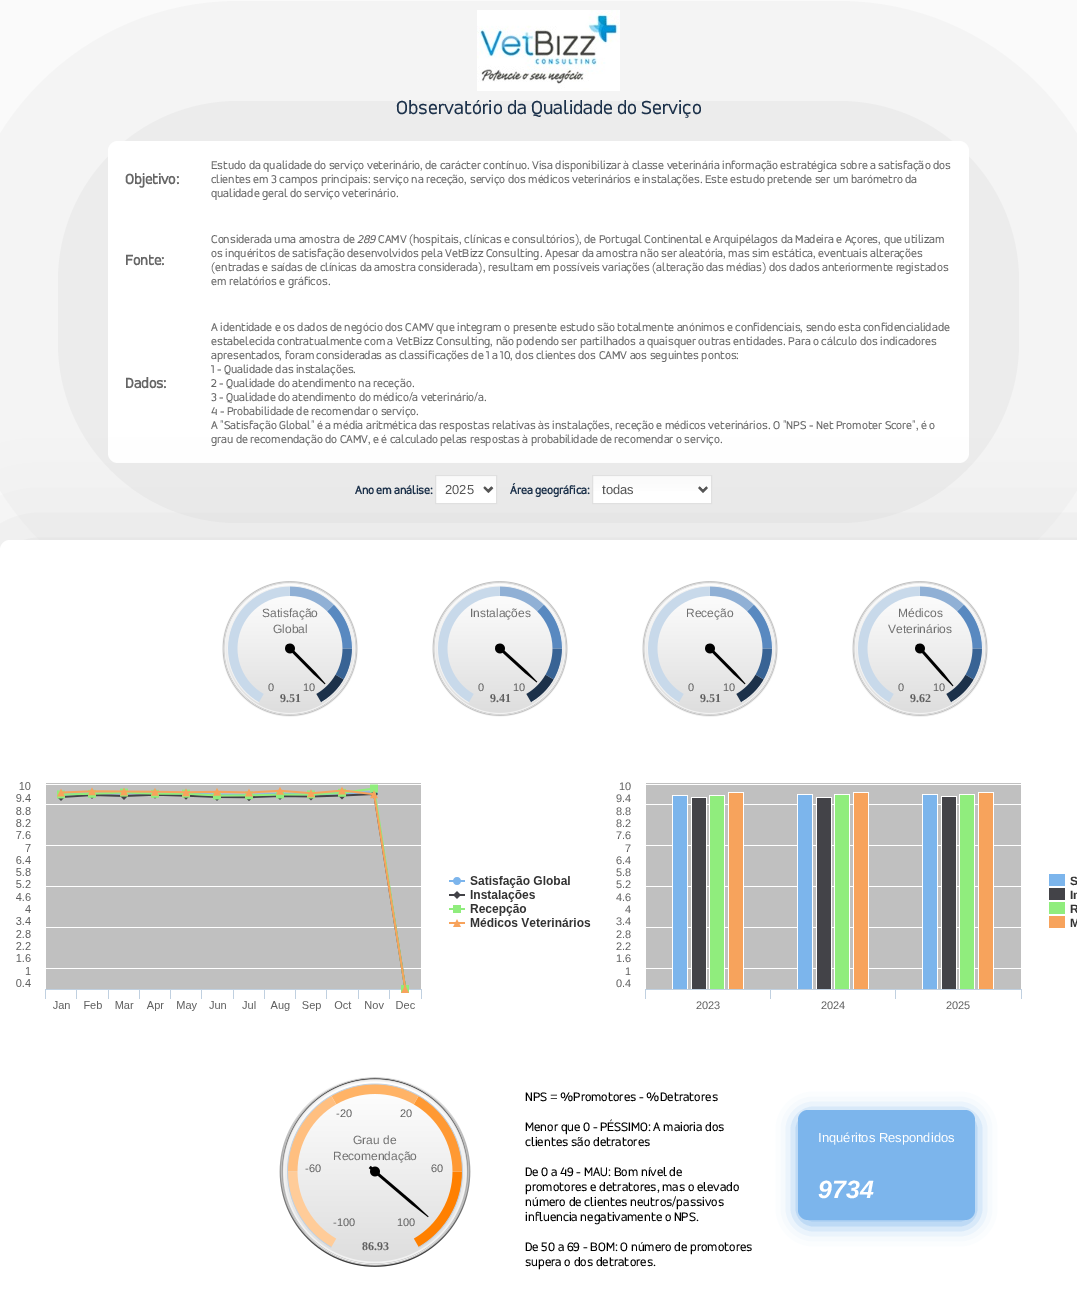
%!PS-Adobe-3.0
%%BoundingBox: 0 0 1077 1293
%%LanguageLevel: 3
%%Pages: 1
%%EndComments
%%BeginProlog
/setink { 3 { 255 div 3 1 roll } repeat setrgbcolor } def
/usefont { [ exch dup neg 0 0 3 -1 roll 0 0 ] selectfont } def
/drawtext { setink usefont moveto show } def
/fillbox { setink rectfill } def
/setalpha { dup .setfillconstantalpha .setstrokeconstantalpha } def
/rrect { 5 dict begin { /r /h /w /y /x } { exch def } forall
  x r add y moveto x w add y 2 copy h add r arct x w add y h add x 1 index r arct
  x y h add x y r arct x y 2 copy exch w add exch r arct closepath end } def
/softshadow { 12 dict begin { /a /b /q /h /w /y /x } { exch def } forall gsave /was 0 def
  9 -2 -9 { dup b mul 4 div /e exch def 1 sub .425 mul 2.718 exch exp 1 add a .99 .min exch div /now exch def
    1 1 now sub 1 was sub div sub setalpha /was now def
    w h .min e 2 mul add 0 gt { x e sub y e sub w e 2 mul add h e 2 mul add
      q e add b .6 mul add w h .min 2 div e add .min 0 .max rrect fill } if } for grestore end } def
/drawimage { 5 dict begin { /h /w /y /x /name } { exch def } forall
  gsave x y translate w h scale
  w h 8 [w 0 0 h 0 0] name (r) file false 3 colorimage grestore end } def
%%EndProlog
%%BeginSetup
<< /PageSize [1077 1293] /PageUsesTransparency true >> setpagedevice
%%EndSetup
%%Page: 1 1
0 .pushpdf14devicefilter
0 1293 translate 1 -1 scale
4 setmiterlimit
0 0 1077 1293 255 255 255 fillbox
217 217 217 setink
108 151 861 322 10 200 1 softshadow
(assets/img1.rgb) 477 10 143 81 drawimage
(Observatório da Qualidade do Serviço) 396 114 /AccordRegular-Regular 20 28 49 74 drawtext
255 255 255 setink
108 141 861 322 10 rrect fill
(Objetivo:) 125 184 /AccordRegular-Bold 15 102 102 102 drawtext
(Estudo da qualidade do serviço veterinário, de carácter contínuo. Visa disponibilizar à classe veterinária informação estratégica sobre a satisfação dos) 211 169 /AccordRegular-Regular 12 102 102 102 drawtext
(clientes em 3 campos principais: serviço na receção, serviço dos médicos veterinários e instalações. Este estudo pretende ser um barómetro da) 211 183 /AccordRegular-Regular 12 102 102 102 drawtext
(qualidade geral do serviço veterinário.) 211 197 /AccordRegular-Regular 12 102 102 102 drawtext
(Fonte:) 125 265 /AccordRegular-Bold 15 102 102 102 drawtext
(Considerada uma amostra de) 211 243 /AccordRegular-Regular 12 102 102 102 drawtext
(289) 357 243 /AccordRegular-Italic 12 102 102 102 drawtext
(CAMV \(hospitais, clínicas e consultórios\), de Portugal Continental e Arquipélagos da Madeira e Açores, que utilizam) 378 243 /AccordRegular-Regular 12 102 102 102 drawtext
(os inquéritos de satisfação desenvolvidos pela VetBizz Consulting. Apesar da amostra não ser aleatória, mas sim estática, eventuais alterações) 211 257 /AccordRegular-Regular 12 102 102 102 drawtext
(\(entradas e saídas de clínicas da amostra considerada\), resultam em possíveis variações \(alteração das médias\) dos dados anteriormente registados) 211 271 /AccordRegular-Regular 12 102 102 102 drawtext
(em relatórios e gráficos.) 211 285 /AccordRegular-Regular 12 102 102 102 drawtext
(Dados:) 125 388 /AccordRegular-Bold 15 102 102 102 drawtext
(A identidade e os dados de negócio dos CAMV que integram o presente estudo são totalmente anónimos e confidenciais, sendo esta confidencialidade) 211 331 /AccordRegular-Regular 12 102 102 102 drawtext
(estabelecida contratualmente com a VetBizz Consulting, não podendo ser partilhados a quaisquer outras entidades. Para o cálculo dos indicadores) 211 345 /AccordRegular-Regular 12 102 102 102 drawtext
(apresentados, foram consideradas as classificações de 1 a 10, dos clientes dos CAMV aos seguintes pontos:) 211 359 /AccordRegular-Regular 12 102 102 102 drawtext
(1 - Qualidade das instalações.) 211 373 /AccordRegular-Regular 12 102 102 102 drawtext
(2 - Qualidade do atendimento na receção.) 211 387 /AccordRegular-Regular 12 102 102 102 drawtext
217 217 217 setink
0 550 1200 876 10 50 1 softshadow
(3 - Qualidade do atendimento do médico/a veterinário/a.) 211 401 /AccordRegular-Regular 12 102 102 102 drawtext
(4 - Probabilidade de recomendar o serviço.) 211 415 /AccordRegular-Regular 12 102 102 102 drawtext
(A "Satisfação Global" é a média aritmética das respostas relativas às instalações, receção e médicos veterinários. O "NPS - Net Promoter Score", é o) 211 429 /AccordRegular-Regular 12 102 102 102 drawtext
(grau de recomendação do CAMV, e é calculado pelas respostas à probabilidade de recomendar o serviço.) 211 443 /AccordRegular-Regular 12 102 102 102 drawtext
(Ano em análise:) 355 494 /AccordRegular-Bold 12 28 49 74 drawtext
436 476 60 27 255 255 255 fillbox
(assets/img2.rgb) 436 477 60 16 drawimage
224 224 224 setink
435.5 475.5 61 28 rectstroke
85 85 85 setink
2 setlinewidth
484.5 487.5 moveto 488.5 491.5 lineto 492.5 487.5 lineto stroke
(2025) 445 494 /LiberationSans-Regular 13 85 85 85 drawtext
(Área geográfica:) 510 494 /AccordRegular-Bold 12 28 49 74 drawtext
593 476 118 27 255 255 255 fillbox
(assets/img3.rgb) 593 477 118 16 drawimage
224 224 224 setink
1 setlinewidth
592.5 475.5 119 28 rectstroke
85 85 85 setink
2 setlinewidth
699 487.5 moveto 703 491.5 lineto 707 487.5 lineto stroke
(todas) 602 494 /LiberationSans-Regular 13 85 85 85 drawtext
255 255 255 setink
0 540 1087 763 10 rrect fill
(assets/img4.rgb) 222 581 136 136 drawimage
(Satisfação) 262 617 /LiberationSans-Regular 12 112 112 112 drawtext
(Global) 273 633 /LiberationSans-Regular 12 112 112 112 drawtext
(0) 268 691 /LiberationSans-Regular 11 96 96 96 drawtext
(10) 303 691 /LiberationSans-Regular 11 96 96 96 drawtext
(9.51) 280 702 /LiberationSerif-Bold 12 96 96 96 drawtext
(assets/img5.rgb) 432 581 136 136 drawimage
(Instalações) 470 617 /LiberationSans-Regular 12 112 112 112 drawtext
(0) 478 691 /LiberationSans-Regular 11 96 96 96 drawtext
(10) 513 691 /LiberationSans-Regular 11 96 96 96 drawtext
(9.41) 490 702 /LiberationSerif-Bold 12 96 96 96 drawtext
(assets/img6.rgb) 642 581 136 136 drawimage
(Receção) 686 617 /LiberationSans-Regular 12 112 112 112 drawtext
(0) 688 691 /LiberationSans-Regular 11 96 96 96 drawtext
(10) 723 691 /LiberationSans-Regular 11 96 96 96 drawtext
(9.51) 700 702 /LiberationSerif-Bold 12 96 96 96 drawtext
(assets/img7.rgb) 852 581 136 136 drawimage
(Médicos) 898 617 /LiberationSans-Regular 12 112 112 112 drawtext
(Veterinários) 888 633 /LiberationSans-Regular 12 112 112 112 drawtext
(0) 898 691 /LiberationSans-Regular 11 96 96 96 drawtext
(10) 933 691 /LiberationSans-Regular 11 96 96 96 drawtext
(9.62) 910 702 /LiberationSerif-Bold 12 96 96 96 drawtext
(assets/img8.rgb) 16 782 575 229 drawimage
(10) 619 790 /LiberationSans-Regular 11 96 96 96 drawtext
(assets/img9.rgb) 645 783 420 216 drawimage
(9.4) 616 802 /LiberationSans-Regular 11 96 96 96 drawtext
(8.8) 616 815 /LiberationSans-Regular 11 96 96 96 drawtext
(8.2) 616 827 /LiberationSans-Regular 11 96 96 96 drawtext
(7.6) 616 839 /LiberationSans-Regular 11 96 96 96 drawtext
(7) 625 852 /LiberationSans-Regular 11 96 96 96 drawtext
(6.4) 616 864 /LiberationSans-Regular 11 96 96 96 drawtext
(5.8) 616 876 /LiberationSans-Regular 11 96 96 96 drawtext
(5.2) 616 888 /LiberationSans-Regular 11 96 96 96 drawtext
(S) 1070 885 /LiberationSans-Bold 12 51 51 51 drawtext
(4.6) 616 901 /LiberationSans-Regular 11 96 96 96 drawtext
(In) 1070 899 /LiberationSans-Bold 12 51 51 51 drawtext
(4) 625 913 /LiberationSans-Regular 11 96 96 96 drawtext
(R) 1070 913 /LiberationSans-Bold 12 51 51 51 drawtext
(3.4) 616 925 /LiberationSans-Regular 11 96 96 96 drawtext
/LiberationSans-Bold 12 usefont
51 51 51 setink
1070 927 moveto 1 0 32 (M) widthshow
(2.8) 616 938 /LiberationSans-Regular 11 96 96 96 drawtext
(2.2) 616 950 /LiberationSans-Regular 11 96 96 96 drawtext
(1.6) 616 962 /LiberationSans-Regular 11 96 96 96 drawtext
(1) 625 975 /LiberationSans-Regular 11 96 96 96 drawtext
(0.4) 616 987 /LiberationSans-Regular 11 96 96 96 drawtext
(2023) 696 1009 /LiberationSans-Regular 11 96 96 96 drawtext
(2024) 821 1009 /LiberationSans-Regular 11 96 96 96 drawtext
(2025) 946 1009 /LiberationSans-Regular 11 96 96 96 drawtext
(assets/img10.rgb) 279 1077 192 190 drawimage
(-20) 336 1117 /LiberationSans-Regular 11 96 96 96 drawtext
(20) 400 1117 /LiberationSans-Regular 11 96 96 96 drawtext
(Grau de) 353 1144 /LiberationSans-Regular 12 112 112 112 drawtext
(Recomendação) 333 1160 /LiberationSans-Regular 12 112 112 112 drawtext
(-60) 305 1172 /LiberationSans-Regular 11 96 96 96 drawtext
(60) 431 1172 /LiberationSans-Regular 11 96 96 96 drawtext
(-100) 333 1226 /LiberationSans-Regular 11 96 96 96 drawtext
(100) 397 1226 /LiberationSans-Regular 11 96 96 96 drawtext
(86.93) 362 1250 /LiberationSerif-Bold 12 96 96 96 drawtext
(NPS = %Promotores - %Detratores) 525 1101 /AccordRegular-Regular 13 0 0 0 drawtext
(Menor que 0 - PÉSSIMO: A maioria dos) 525 1131 /AccordRegular-Regular 13 0 0 0 drawtext
(clientes são detratores) 525 1146 /AccordRegular-Regular 13 0 0 0 drawtext
(De 0 a 49 - MAU: Bom nível de) 525 1176 /AccordRegular-Regular 13 0 0 0 drawtext
(promotores e detratores, mas o elevado) 525 1191 /AccordRegular-Regular 13 0 0 0 drawtext
(número de clientes neutros/passivos) 525 1206 /AccordRegular-Regular 13 0 0 0 drawtext
(influencia negativamente o NPS.) 525 1221 /AccordRegular-Regular 13 0 0 0 drawtext
(De 50 a 69 - BOM: O número de promotores) 525 1251 /AccordRegular-Regular 13 0 0 0 drawtext
(supera o dos detratores.) 525 1266 /AccordRegular-Regular 13 0 0 0 drawtext
124 181 236 setink
798 1114 177 110 10 10 1 softshadow
798 1110 177 110 10 rrect fill
(Inquéritos Respondidos) 818 1142 /LiberationSans-Regular 13 255 255 255 drawtext
(9734) 818 1198 /LiberationSans-BoldItalic 25 255 255 255 drawtext
.poppdf14devicefilter showpage
%%EOF
